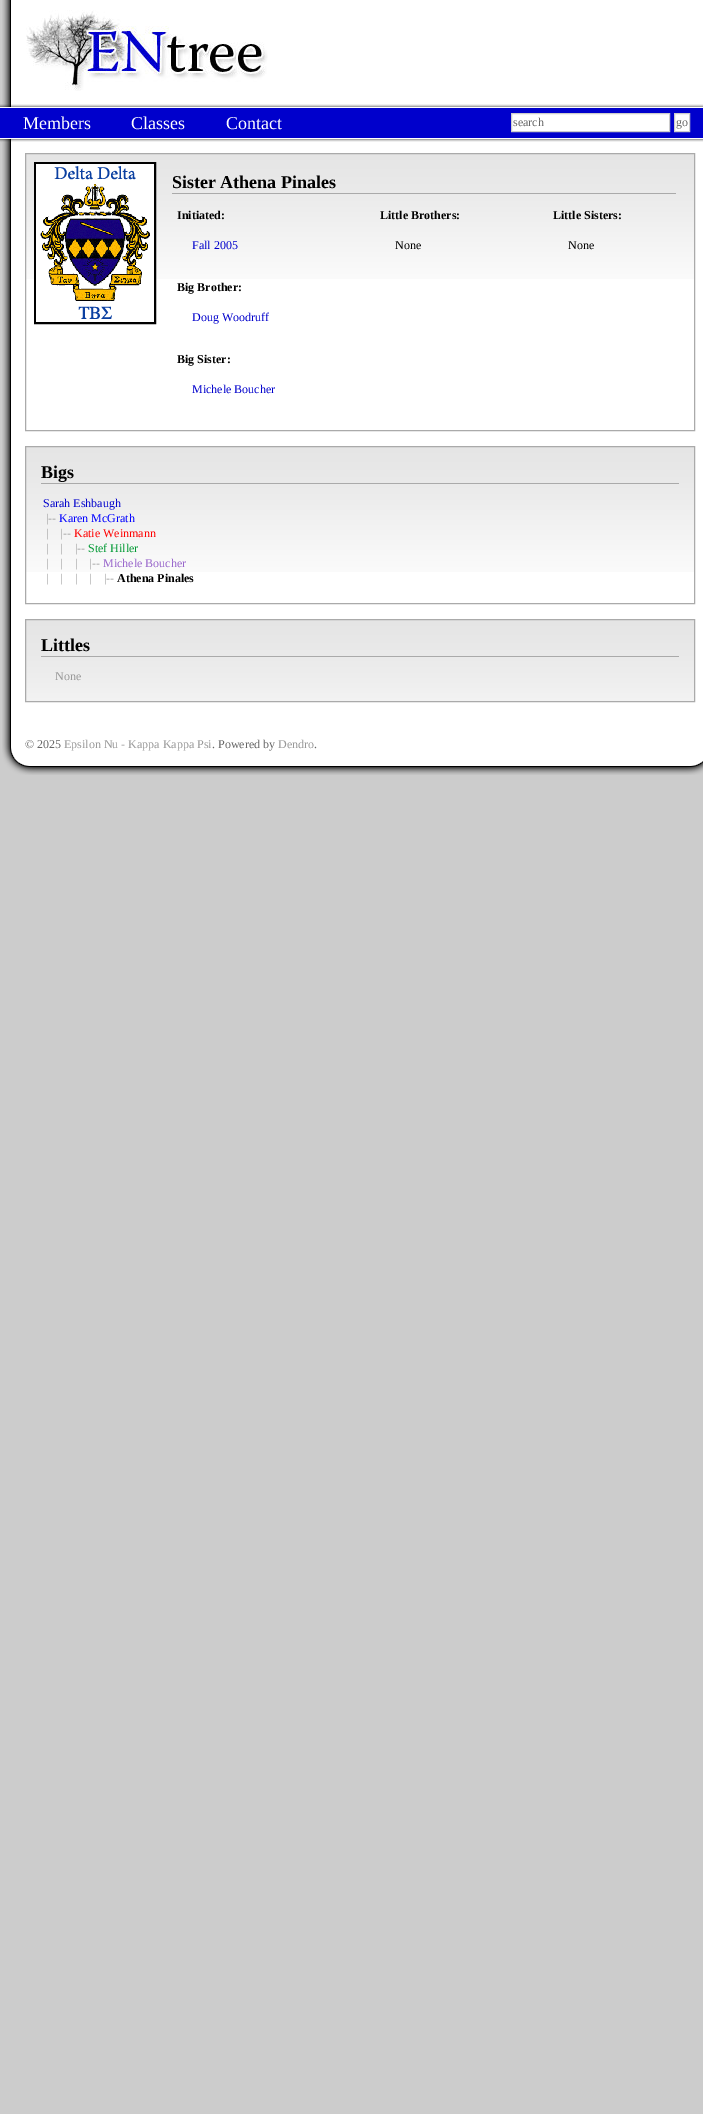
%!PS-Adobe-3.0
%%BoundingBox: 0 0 703 2114
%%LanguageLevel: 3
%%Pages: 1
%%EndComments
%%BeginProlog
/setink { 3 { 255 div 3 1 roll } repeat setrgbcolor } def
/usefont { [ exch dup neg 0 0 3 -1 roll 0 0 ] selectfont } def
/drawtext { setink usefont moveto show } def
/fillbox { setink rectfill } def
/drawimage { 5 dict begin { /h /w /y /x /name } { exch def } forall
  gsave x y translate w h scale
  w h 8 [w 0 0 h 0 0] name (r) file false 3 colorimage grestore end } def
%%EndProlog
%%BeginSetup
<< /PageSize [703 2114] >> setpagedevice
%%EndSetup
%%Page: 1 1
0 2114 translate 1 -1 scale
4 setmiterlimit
0 0 703 2114 204 204 204 fillbox
(assets/img1.rgb) 2 0 701 104 drawimage
(assets/img2.rgb) 26 10 242 81 drawimage
(assets/img3.rgb) 0 104 703 39 drawimage
(Members) 23 129 /LiberationSerif-Regular 18 255 255 255 drawtext
(Classes) 131 129 /LiberationSerif-Regular 18 255 255 255 drawtext
(Contact) 226 129 /LiberationSerif-Regular 18 255 255 255 drawtext
511.5 113.5 moveto 669.5 113.5 lineto 669.5 131.5 lineto 511.5 131.5 lineto closepath gsave fill grestore
204 204 204 setink
stroke
(search) 513 126 /LiberationSerif-Regular 12 102 102 102 drawtext
255 255 255 setink
674.5 113.5 moveto 689.5 113.5 lineto 689.5 131.5 lineto 674.5 131.5 lineto closepath gsave fill grestore
204 204 204 setink
stroke
(go) 676 126 /LiberationSerif-Regular 12 102 102 102 drawtext
(assets/img4.rgb) 2 143 701 584 drawimage
(assets/img5.rgb) 26 154 668 125 drawimage
170 170 170 setink
25.5 153.5 669 277 rectstroke
0 0 0 setink
34.5 162.5 121 161 rectstroke
(assets/img6.rgb) 35 163 120 160 drawimage
172 193 504 1 170 170 170 fillbox
(Sister Athena Pinales) 172 188 /LiberationSerif-Bold 18 0 0 0 drawtext
(Initiated:) 177 219 /LiberationSerif-Bold 12 0 0 0 drawtext
(Fall 2005) 192 249 /LiberationSerif-Regular 12 0 0 204 drawtext
(Big Brother:) 177 291 /LiberationSerif-Bold 12 0 0 0 drawtext
(Doug Woodruff) 192 321 /LiberationSerif-Regular 12 0 0 204 drawtext
(Big Sister:) 177 363 /LiberationSerif-Bold 12 0 0 0 drawtext
(Michele Boucher) 192 393 /LiberationSerif-Regular 12 0 0 204 drawtext
(Little Brothers:) 380 219 /LiberationSerif-Bold 12 0 0 0 drawtext
(None) 395 249 /LiberationSerif-Regular 12 0 0 0 drawtext
(Little Sisters:) 553 219 /LiberationSerif-Bold 12 0 0 0 drawtext
(None) 568 249 /LiberationSerif-Regular 12 0 0 0 drawtext
(assets/img5.rgb) 26 447 668 125 drawimage
170 170 170 setink
25.5 446.5 669 157 rectstroke
41 483 638 1 170 170 170 fillbox
(Bigs) 41 478 /LiberationSerif-Bold 18 0 0 0 drawtext
(Sarah Eshbaugh) 43 507 /LiberationSerif-Regular 12 0 0 204 drawtext
(|--) 46 522 /LiberationSerif-Regular 12 153 153 153 drawtext
(Karen McGrath) 59 522 /LiberationSerif-Regular 12 0 0 255 drawtext
(|    |--) 46 537 /LiberationSerif-Regular 12 153 153 153 drawtext
(Katie Weinmann) 74 537 /LiberationSerif-Regular 12 255 0 0 drawtext
(|    |    |--) 46 552 /LiberationSerif-Regular 12 153 153 153 drawtext
(Stef Hiller) 88 552 /LiberationSerif-Regular 12 0 153 51 drawtext
(|    |    |    |--) 46 567 /LiberationSerif-Regular 12 153 153 153 drawtext
(Michele Boucher) 103 567 /LiberationSerif-Regular 12 153 102 204 drawtext
(|    |    |    |    |--) 46 582 /LiberationSerif-Regular 12 153 153 153 drawtext
(Athena Pinales) 117 582 /LiberationSerif-Bold 12 0 0 0 drawtext
(assets/img7.rgb) 26 620 668 81 drawimage
170 170 170 setink
25.5 619.5 669 82 rectstroke
41 656 638 1 170 170 170 fillbox
(Littles) 41 651 /LiberationSerif-Bold 18 0 0 0 drawtext
(None) 55 680 /LiberationSerif-Regular 12 153 153 153 drawtext
(assets/img8.rgb) 2 727 701 48 drawimage
(© 2025) 25 748 /LiberationSerif-Regular 12 102 102 102 drawtext
(Epsilon Nu - Kappa Kappa Psi) 64 748 /LiberationSerif-Regular 12 153 153 153 drawtext
(. Powered by) 212 748 /LiberationSerif-Regular 12 102 102 102 drawtext
(Dendro) 278 748 /LiberationSerif-Regular 12 153 153 153 drawtext
(.) 314 748 /LiberationSerif-Regular 12 102 102 102 drawtext
showpage
%%EOF
